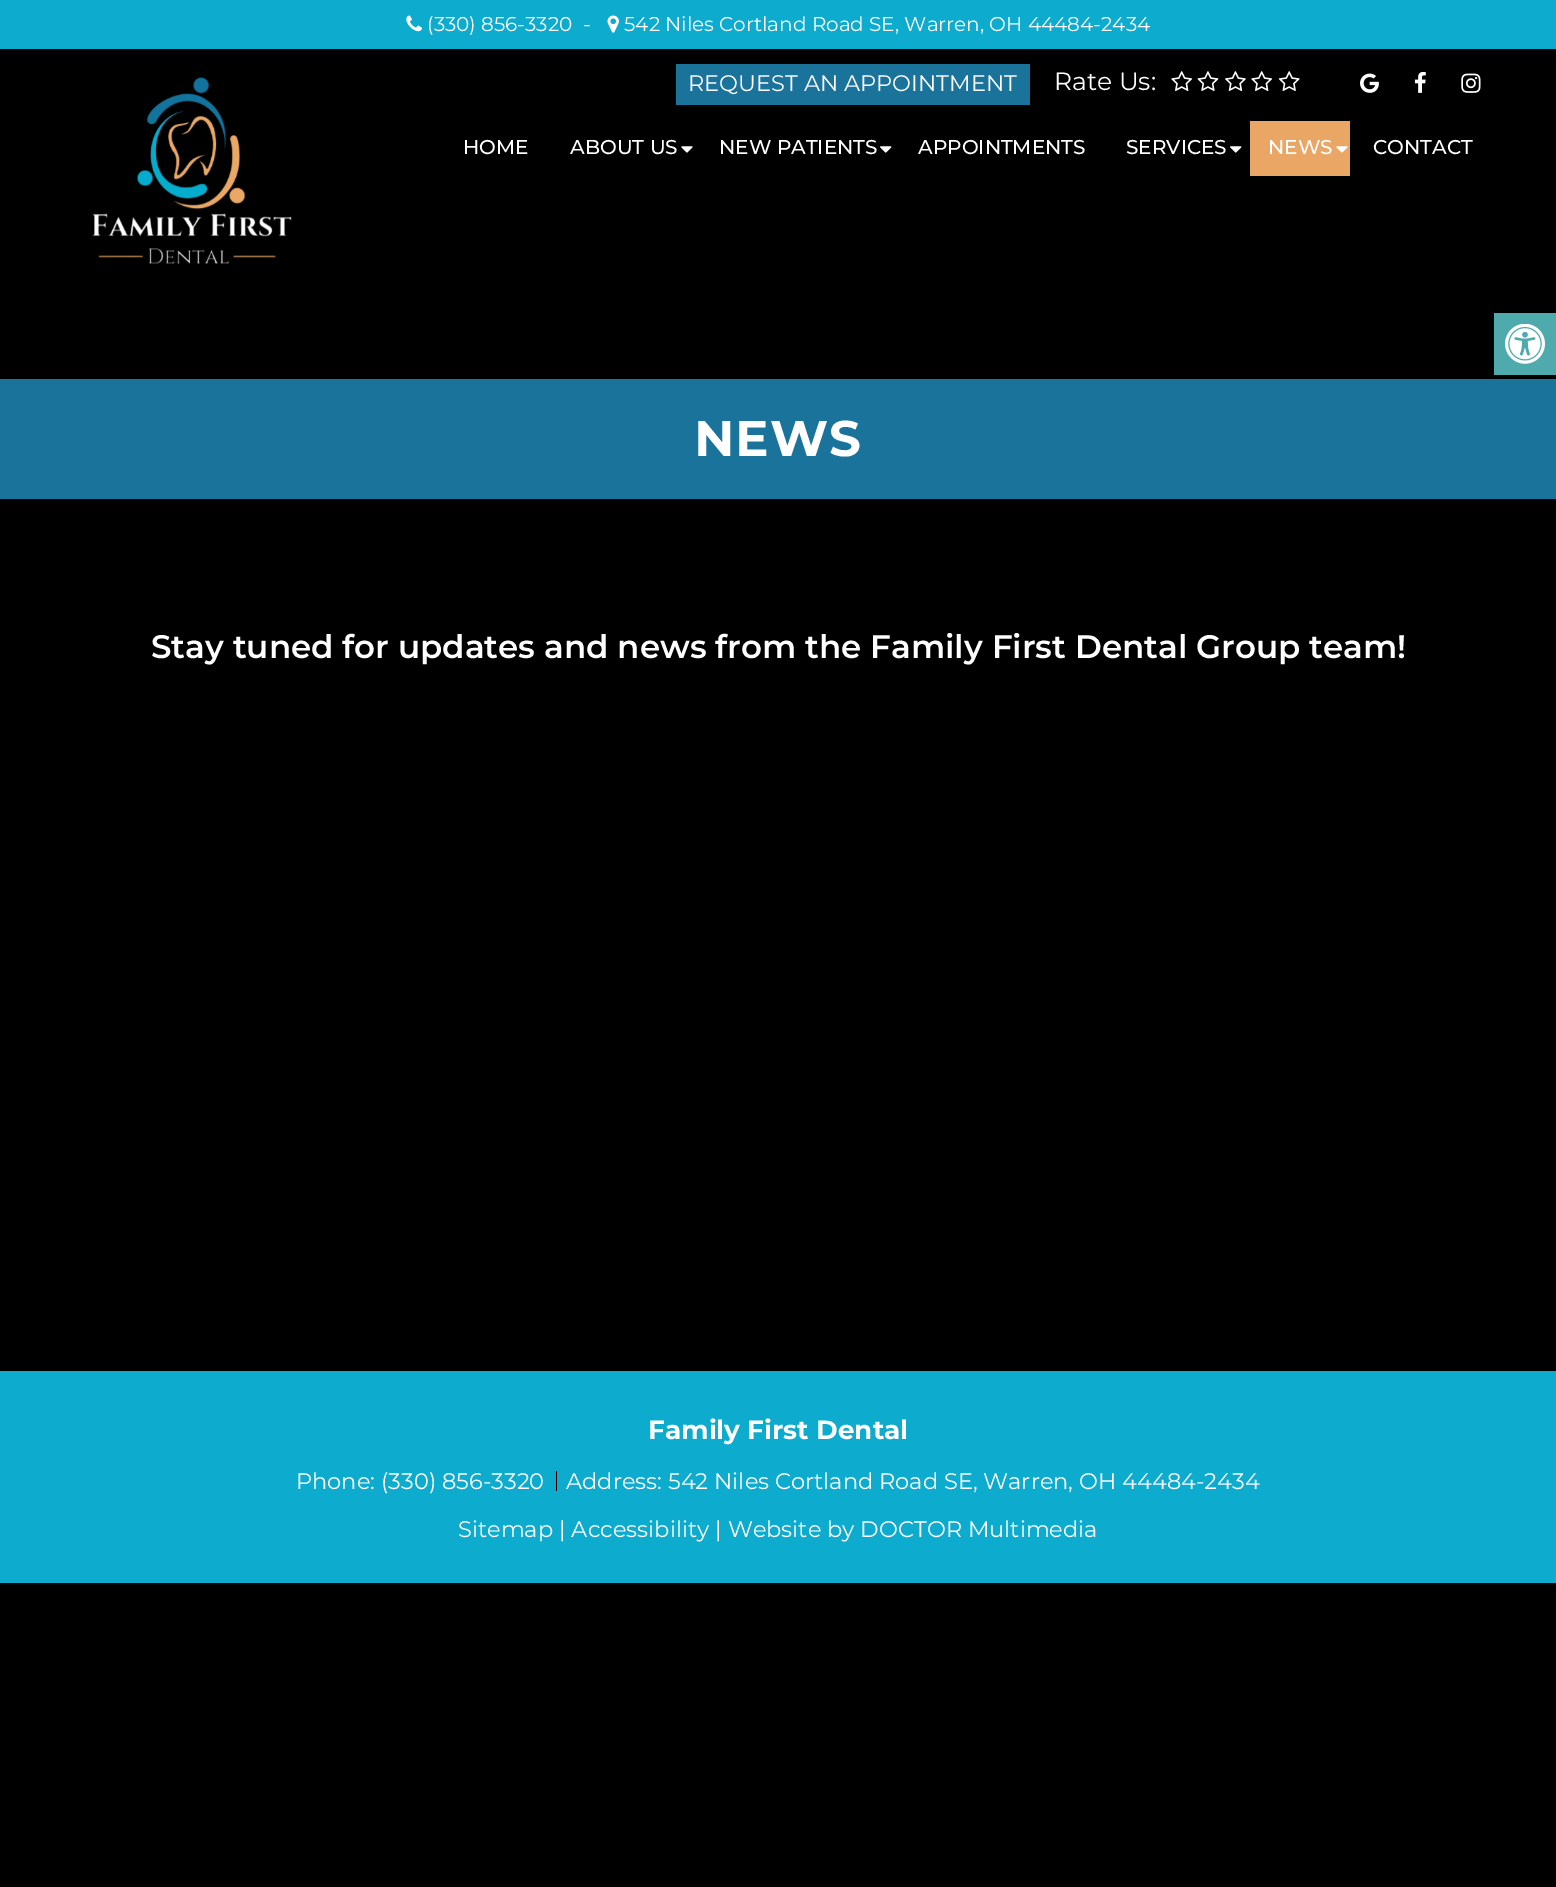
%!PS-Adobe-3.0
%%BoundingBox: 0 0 1556 1887
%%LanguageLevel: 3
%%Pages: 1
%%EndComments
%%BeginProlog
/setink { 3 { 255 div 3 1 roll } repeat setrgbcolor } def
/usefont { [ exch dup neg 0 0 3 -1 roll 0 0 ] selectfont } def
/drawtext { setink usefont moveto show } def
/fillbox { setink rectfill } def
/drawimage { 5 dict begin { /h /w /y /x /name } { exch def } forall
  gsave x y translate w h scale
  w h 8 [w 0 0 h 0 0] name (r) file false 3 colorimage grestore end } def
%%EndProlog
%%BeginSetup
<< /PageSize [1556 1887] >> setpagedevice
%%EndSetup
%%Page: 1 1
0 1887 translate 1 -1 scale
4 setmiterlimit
0 0 1556 1887 0 0 0 fillbox
0 0 1556 49 13 171 205 fillbox
(assets/img1.rgb) 406 15 16 17 drawimage
(\(330\) 856-3320) 427 31 /Montserrat-Regular 20 255 255 255 drawtext
(-) 583 31 /Montserrat-Regular 20 255 255 255 drawtext
(assets/img2.rgb) 607 15 12 18 drawimage
(542 Niles Cortland Road SE, Warren, OH 44484-2434) 624 31 /Montserrat-Regular 20 255 255 255 drawtext
(assets/img3.rgb) 92 77 200 187 drawimage
676 64 354 41 25 115 155 fillbox
(REQUEST AN APPOINTMENT) 688 91 /Montserrat-Regular 22.5 255 255 255 drawtext
(Rate Us:) 1054 90 /Montserrat-Regular 25 255 255 255 drawtext
(assets/img4.rgb) 1171 71 22 20 drawimage
(assets/img5.rgb) 1197 71 22 20 drawimage
(assets/img6.rgb) 1225 71 21 20 drawimage
(assets/img4.rgb) 1251 71 22 20 drawimage
(assets/img7.rgb) 1278 71 22 20 drawimage
(assets/img8.rgb) 1360 73 19 20 drawimage
(assets/img9.rgb) 1414 72 12 21 drawimage
(assets/img10.rgb) 1461 73 20 20 drawimage
(HOME) 463 154 /Montserrat-Medium 20 255 255 255 drawtext
(ABOUT US) 570 154 /Montserrat-Medium 20 255 255 255 drawtext
(assets/img11.rgb) 681 146 12 7 drawimage
(NEW PATIENTS) 719 154 /Montserrat-Medium 20 255 255 255 drawtext
(assets/img12.rgb) 880 146 12 7 drawimage
(APPOINTMENTS) 918 154 /Montserrat-Medium 20 255 255 255 drawtext
(SERVICES) 1126 154 /Montserrat-Medium 20 255 255 255 drawtext
(assets/img12.rgb) 1230 146 12 7 drawimage
1250 121 100 55 233 166 100 fillbox
(NEWS) 1268 154 /Montserrat-Medium 20 255 255 255 drawtext
(assets/img13.rgb) 1336 146 12 7 drawimage
(CONTACT) 1373 154 /Montserrat-Medium 20 255 255 255 drawtext
0 379 1556 120 25 115 155 fillbox
/Montserrat-Bold 50 usefont
255 255 255 setink
694 456 moveto 1 0 (NEWS) ashow
(Stay tuned for updates and news from the Family First Dental Group team!) 151 658 /Montserrat-SemiBold 32.5 255 255 255 drawtext
0 1371 1556 212 13 171 205 fillbox
(Family First Dental) 648 1439 /Montserrat-Bold 26.25 255 255 255 drawtext
(Phone: \(330\) 856-3320) 296 1489 /Montserrat-Regular 22.5 255 255 255 drawtext
556 1471 1 20 0 0 0 fillbox
(Address: 542 Niles Cortland Road SE, Warren, OH 44484-2434) 566 1489 /Montserrat-Regular 22.5 255 255 255 drawtext
(Sitemap | Accessibility | Website by DOCTOR Multimedia) 458 1537 /Montserrat-Regular 22.5 255 255 255 drawtext
1494 313 62 62 79 170 174 fillbox
(assets/img14.rgb) 1505 324 40 40 drawimage
showpage
%%EOF
